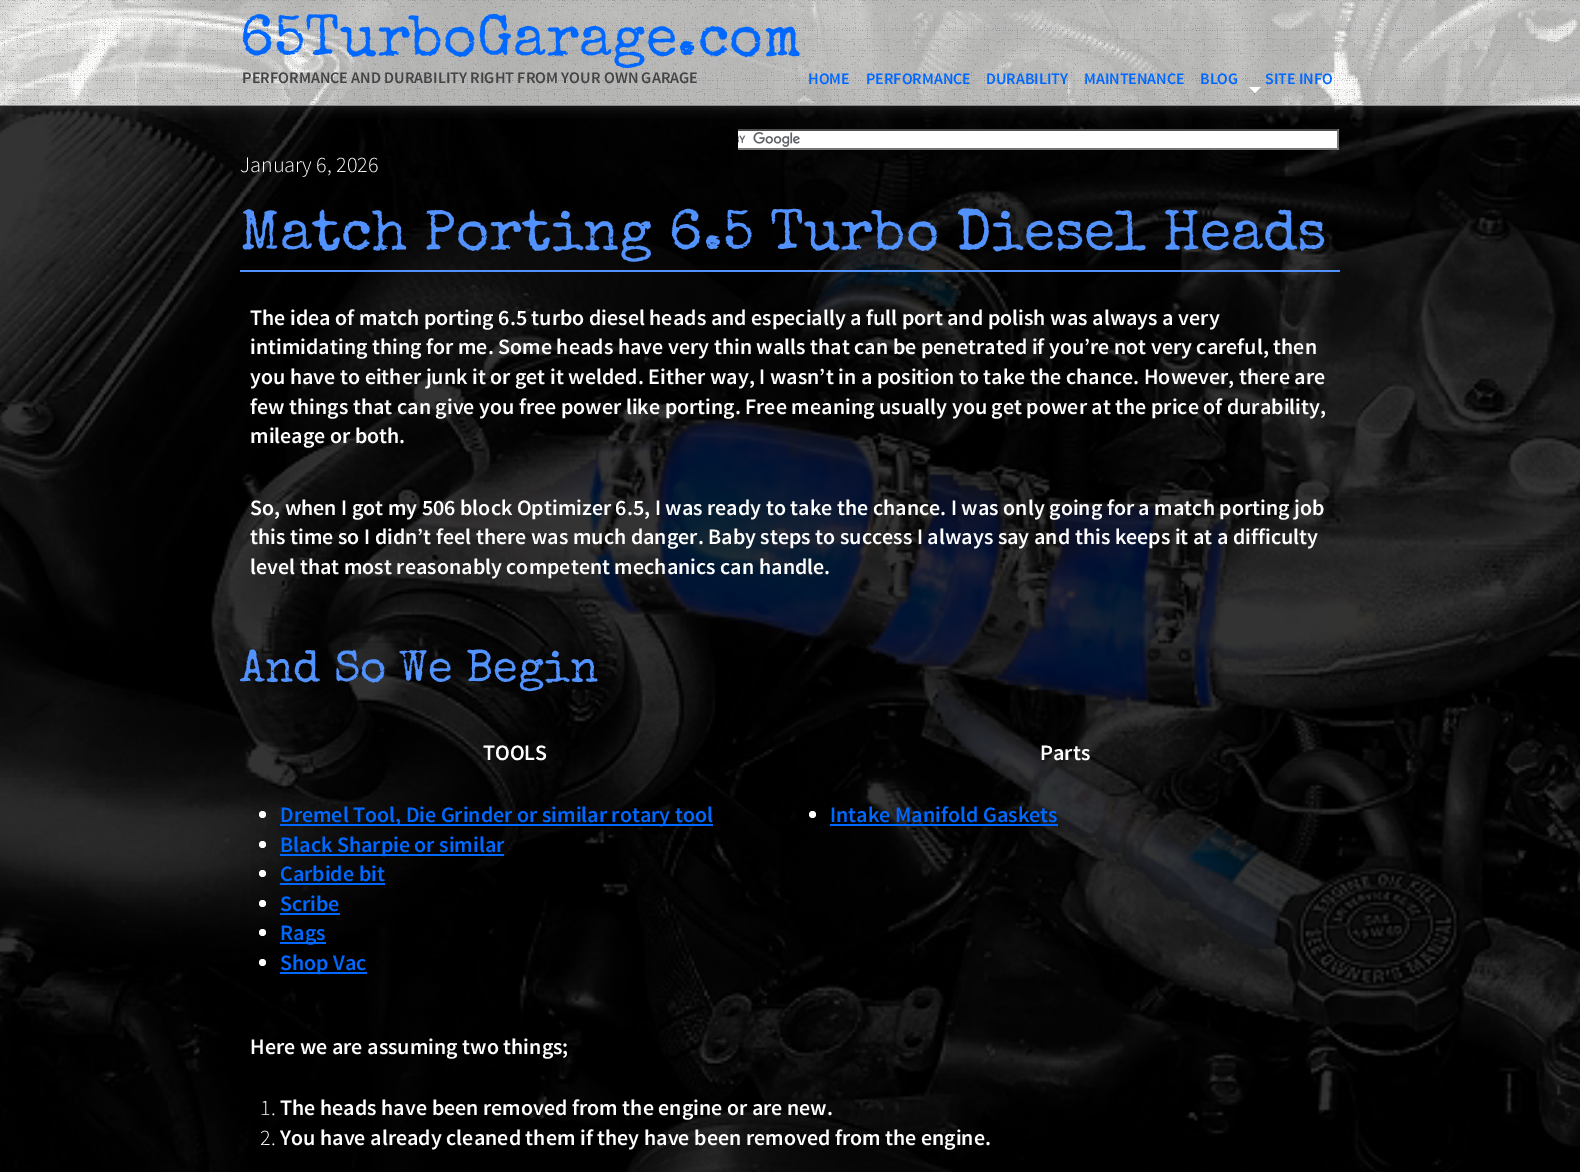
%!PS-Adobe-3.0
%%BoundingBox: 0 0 1580 1172
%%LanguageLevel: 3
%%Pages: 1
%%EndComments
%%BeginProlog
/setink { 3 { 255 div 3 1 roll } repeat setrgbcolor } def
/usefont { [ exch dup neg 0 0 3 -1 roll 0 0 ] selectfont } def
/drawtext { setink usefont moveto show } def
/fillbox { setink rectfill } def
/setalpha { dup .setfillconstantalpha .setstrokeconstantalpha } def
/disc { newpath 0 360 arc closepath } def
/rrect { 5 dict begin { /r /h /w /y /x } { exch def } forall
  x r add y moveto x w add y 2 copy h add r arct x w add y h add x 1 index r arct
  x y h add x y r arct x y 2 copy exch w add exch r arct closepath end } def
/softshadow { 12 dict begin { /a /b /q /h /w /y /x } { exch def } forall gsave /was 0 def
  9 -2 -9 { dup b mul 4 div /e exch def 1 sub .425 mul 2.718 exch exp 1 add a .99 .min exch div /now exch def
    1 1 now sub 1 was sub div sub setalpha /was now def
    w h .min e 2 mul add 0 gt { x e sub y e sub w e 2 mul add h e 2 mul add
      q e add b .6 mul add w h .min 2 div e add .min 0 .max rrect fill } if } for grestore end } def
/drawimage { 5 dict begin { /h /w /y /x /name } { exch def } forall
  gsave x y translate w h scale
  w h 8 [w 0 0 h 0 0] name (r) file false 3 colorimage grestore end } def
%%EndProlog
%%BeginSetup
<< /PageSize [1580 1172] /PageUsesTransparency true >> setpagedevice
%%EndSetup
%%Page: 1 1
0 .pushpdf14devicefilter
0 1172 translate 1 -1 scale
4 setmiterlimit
0 0 1580 1172 255 255 255 fillbox
(assets/img1.rgb) 0 0 1580 1172 drawimage
gsave
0 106 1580 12 rectclip
51 51 51 setink
-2 -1 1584 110 0 5 0.5 softshadow
grestore
(assets/img2.rgb) 0 0 1580 105 drawimage
0 105 1580 1 136 136 136 fillbox
(65TurboGarage.com) 240 55 /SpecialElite-Regular 58 0 104 255 drawtext
(PERFORMANCE AND DURABILITY RIGHT FROM YOUR OWN GARAGE) 242 83 /SourceSansPro-SemiBold 16.2 68 68 68 drawtext
(HOME) 808 84 /SourceSansPro-SemiBold 16 0 104 255 drawtext
(PERFORMANCE) 866 84 /SourceSansPro-SemiBold 16 0 104 255 drawtext
(DURABILITY) 986 84 /SourceSansPro-SemiBold 16 0 104 255 drawtext
(MAINTENANCE) 1084 84 /SourceSansPro-SemiBold 16 0 104 255 drawtext
(BLOG) 1200 84 /SourceSansPro-SemiBold 16 0 104 255 drawtext
(SITE INFO) 1265 84 /SourceSansPro-SemiBold 16 0 104 255 drawtext
255 255 255 setink
1249 87 moveto 1261 87 lineto 1255 93 lineto closepath fill
738 129 601 21 255 255 255 fillbox
(assets/img3.rgb) 738 132 62 15 drawimage
gsave
738 123 601 57 rectclip
79 79 79 setink
666 129 moveto 1339 129 lineto 1337 131 lineto 668 131 lineto closepath fill
grestore
118 118 118 setink
1339 129 moveto 1339 150 lineto 1337 148 lineto 1337 131 lineto closepath fill
gsave
738 123 601 57 rectclip
1339 150 moveto 666 150 lineto 668 148 lineto 1337 148 lineto closepath fill
grestore
(January 6, 2026) 240 172 /SourceSansPro-Light 22 255 255 255 drawtext
240 270 1100 2 82 146 255 fillbox
(Match Porting 6.5 Turbo Diesel Heads) 240 249 /SpecialElite-Regular 57 82 146 255 drawtext
(The idea of match porting 6.5 turbo diesel heads and especially a full port and polish was always a very) 250 325 /SourceSansPro-SemiBold 22 255 255 255 drawtext
(intimidating thing for me. Some heads have very thin walls that can be penetrated if you’re not very careful, then) 250 354 /SourceSansPro-SemiBold 22 255 255 255 drawtext
(you have to either junk it or get it welded. Either way, I wasn’t in a position to take the chance. However, there are) 250 384 /SourceSansPro-SemiBold 22 255 255 255 drawtext
(few things that can give you free power like porting. Free meaning usually you get power at the price of durability,) 250 414 /SourceSansPro-SemiBold 22 255 255 255 drawtext
(mileage or both.) 250 443 /SourceSansPro-SemiBold 22 255 255 255 drawtext
(So, when I got my 506 block Optimizer 6.5, I was ready to take the chance. I was only going for a match porting job) 250 515 /SourceSansPro-SemiBold 22 255 255 255 drawtext
(this time so I didn’t feel there was much danger. Baby steps to success I always say and this keeps it at a difficulty) 250 544 /SourceSansPro-SemiBold 22 255 255 255 drawtext
(level that most reasonably competent mechanics can handle.) 250 574 /SourceSansPro-SemiBold 22 255 255 255 drawtext
(And So We Begin) 240 681 /SpecialElite-Regular 45 82 146 255 drawtext
(TOOLS) 483 760 /SourceSansPro-SemiBold 22 255 255 255 drawtext
262.5 814.5 3.5 disc fill
280 824 433 2 0 104 255 fillbox
(Dremel Tool, Die Grinder or similar rotary tool) 280 822 /SourceSansPro-SemiBold 22 0 104 255 drawtext
255 255 255 setink
262.5 844.5 3.5 disc fill
280 854 224 2 0 104 255 fillbox
(Black Sharpie or similar) 280 852 /SourceSansPro-SemiBold 22 0 104 255 drawtext
255 255 255 setink
262.5 873.5 3.5 disc fill
(Carbide bit) 280 881 /SourceSansPro-SemiBold 22 0 104 255 drawtext
280 883 105 2 0 104 255 fillbox
255 255 255 setink
262.5 903.5 3.5 disc fill
(Scribe) 280 911 /SourceSansPro-SemiBold 22 0 104 255 drawtext
280 913 60 2 0 104 255 fillbox
255 255 255 setink
262.5 932.5 3.5 disc fill
280 942 46 2 0 104 255 fillbox
(Rags) 280 940 /SourceSansPro-SemiBold 22 0 104 255 drawtext
255 255 255 setink
262.5 962.5 3.5 disc fill
280 972 87 2 0 104 255 fillbox
(Shop Vac) 280 970 /SourceSansPro-SemiBold 22 0 104 255 drawtext
(Parts) 1040 760 /SourceSansPro-SemiBold 22 255 255 255 drawtext
812.5 814.5 3.5 disc fill
(Intake Manifold Gaskets) 830 822 /SourceSansPro-SemiBold 22 0 104 255 drawtext
830 824 228 2 0 104 255 fillbox
(Here we are assuming two things;) 250 1054 /SourceSansPro-SemiBold 22 255 255 255 drawtext
(1.) 260 1115 /SourceSansPro-Light 22 255 255 255 drawtext
(The heads have been removed from the engine or are new.) 280 1115 /SourceSansPro-SemiBold 22 255 255 255 drawtext
(2.) 260 1145 /SourceSansPro-Light 22 255 255 255 drawtext
(You have already cleaned them if they have been removed from the engine.) 280 1145 /SourceSansPro-SemiBold 22 255 255 255 drawtext
.poppdf14devicefilter showpage
%%EOF
